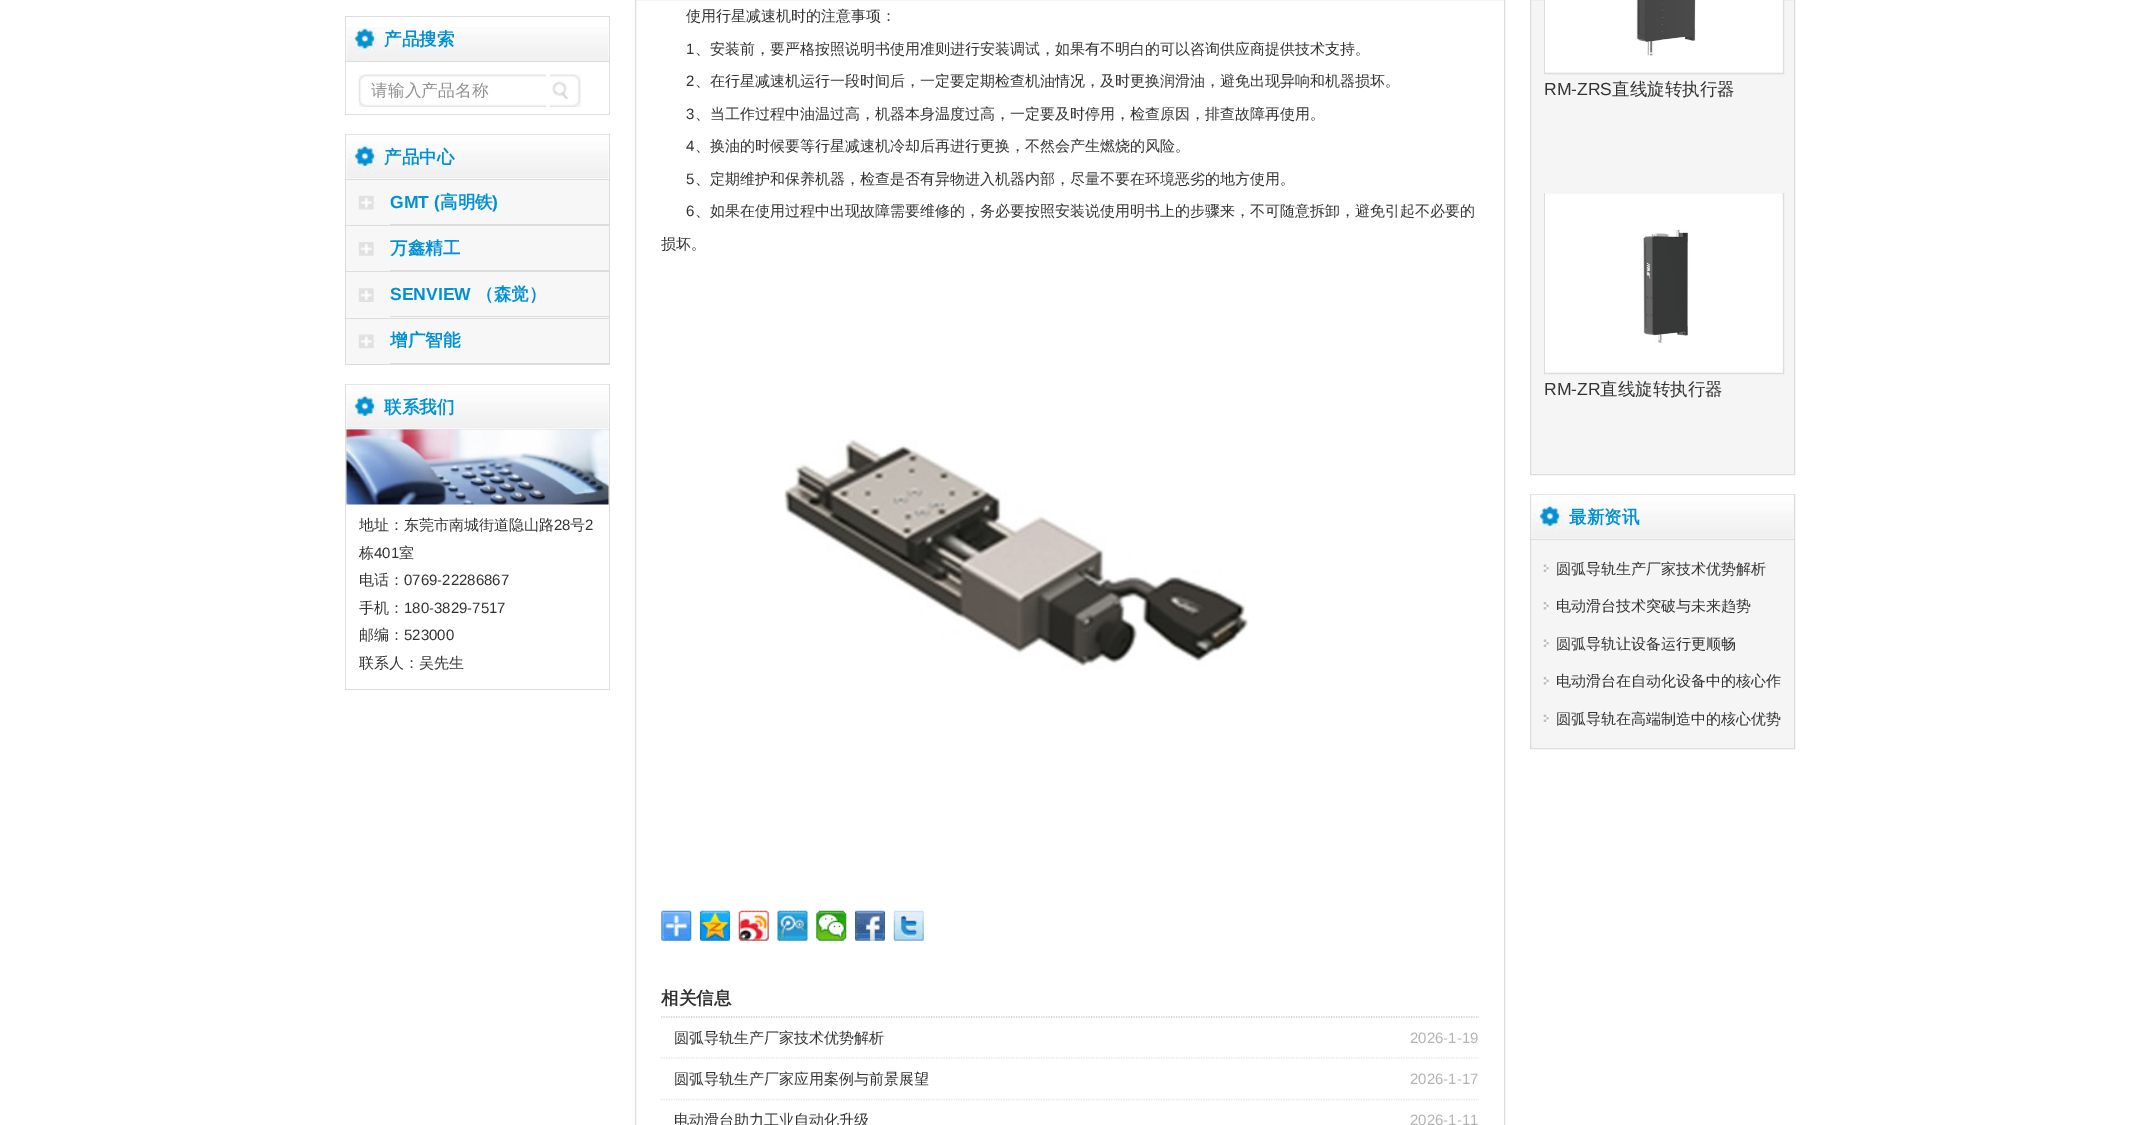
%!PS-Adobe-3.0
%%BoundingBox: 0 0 2139 1125
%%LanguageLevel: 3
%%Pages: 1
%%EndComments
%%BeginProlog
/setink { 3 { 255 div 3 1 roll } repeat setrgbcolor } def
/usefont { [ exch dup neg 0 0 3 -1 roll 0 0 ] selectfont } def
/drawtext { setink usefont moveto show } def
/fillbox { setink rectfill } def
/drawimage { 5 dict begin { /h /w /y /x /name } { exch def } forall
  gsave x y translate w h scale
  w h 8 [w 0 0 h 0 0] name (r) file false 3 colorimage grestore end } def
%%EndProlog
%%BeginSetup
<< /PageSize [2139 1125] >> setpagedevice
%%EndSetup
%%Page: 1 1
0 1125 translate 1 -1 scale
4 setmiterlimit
0 0 2139 1125 255 255 255 fillbox
345 16 265 1 221 221 221 fillbox
609 16 1 99 221 221 221 fillbox
345 16 1 99 221 221 221 fillbox
(assets/img1.rgb) 346 27 263 34 drawimage
346 61 263 1 221 221 221 fillbox
(产品搜索) 384 45 /WenQuanYiZenHei-Bold 17.5 0 144 212 drawtext
346 114 263 1 221 221 221 fillbox
(assets/img2.rgb) 358 74 189 33 drawimage
(请输入产品名称) 371 96 /WenQuanYiZenHei-Medium 16.75 145 145 145 drawtext
(assets/img3.rgb) 550 74 31 33 drawimage
345 134 265 1 221 221 221 fillbox
609 134 1 231 221 221 221 fillbox
345 134 1 231 221 221 221 fillbox
(assets/img4.rgb) 346 134 263 45 drawimage
346 179 263 1 221 221 221 fillbox
(产品中心) 384 163 /WenQuanYiZenHei-Bold 17.5 0 144 212 drawtext
346 180 263 45 247 247 247 fillbox
(assets/img5.rgb) 358 195 16 15 drawimage
346 225 263 1 221 221 221 fillbox
390 224 219 1 221 221 221 fillbox
(GMT \() 390 208 /LiberationSans-Bold 17.5 0 144 212 drawtext
(高明铁) 440 208 /WenQuanYiZenHei-Bold 17.5 0 144 212 drawtext
(\)) 492 208 /LiberationSans-Bold 17.5 0 144 212 drawtext
346 226 263 92 247 247 247 fillbox
(assets/img6.rgb) 358 242 16 14 drawimage
346 271 263 1 221 221 221 fillbox
390 270 219 1 221 221 221 fillbox
(万鑫精工) 390 254 /WenQuanYiZenHei-Bold 17.5 0 144 212 drawtext
(assets/img7.rgb) 358 288 16 14 drawimage
346 318 263 1 221 221 221 fillbox
390 316 219 1 221 221 221 fillbox
(SENVIEW) 390 300 /LiberationSans-Bold 17.5 0 144 212 drawtext
(（森觉）) 476 300 /WenQuanYiZenHei-Bold 17.5 0 144 212 drawtext
346 319 263 45 247 247 247 fillbox
(assets/img8.rgb) 358 334 16 15 drawimage
346 364 263 1 221 221 221 fillbox
390 363 219 1 221 221 221 fillbox
(增广智能) 390 346 /WenQuanYiZenHei-Bold 17.5 0 144 212 drawtext
345 384 265 1 221 221 221 fillbox
609 384 1 306 221 221 221 fillbox
345 384 1 306 221 221 221 fillbox
(assets/img4.rgb) 346 384 263 45 drawimage
346 429 263 1 221 221 221 fillbox
(联系我们) 384 413 /WenQuanYiZenHei-Bold 17.5 0 144 212 drawtext
(assets/img9.rgb) 346 429 263 76 drawimage
346 689 263 1 221 221 221 fillbox
(地址：东莞市南城街道隐山路) 359 530 /WenQuanYiZenHei-Medium 15 51 51 51 drawtext
(28) 554 530 /LiberationSans-Regular 15 51 51 51 drawtext
(号) 570 530 /WenQuanYiZenHei-Medium 15 51 51 51 drawtext
(2) 585 530 /LiberationSans-Regular 15 51 51 51 drawtext
(栋) 359 558 /WenQuanYiZenHei-Medium 15 51 51 51 drawtext
(401) 374 558 /LiberationSans-Regular 15 51 51 51 drawtext
(室) 399 558 /WenQuanYiZenHei-Medium 15 51 51 51 drawtext
(电话：) 359 585 /WenQuanYiZenHei-Medium 15 51 51 51 drawtext
(0769-22286867) 404 585 /LiberationSans-Regular 15 51 51 51 drawtext
(手机：) 359 613 /WenQuanYiZenHei-Medium 15 51 51 51 drawtext
(180-3829-7517) 404 613 /LiberationSans-Regular 15 51 51 51 drawtext
(邮编：) 359 640 /WenQuanYiZenHei-Medium 15 51 51 51 drawtext
(523000) 404 640 /LiberationSans-Regular 15 51 51 51 drawtext
(联系人：吴先生) 359 668 /WenQuanYiZenHei-Medium 15 51 51 51 drawtext
221 221 221 setink
635.5 -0.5 869 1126 rectstroke
(使用行星减速机时的注意事项：) 686 21 /WenQuanYiZenHei-Medium 15 51 51 51 drawtext
(1) 686 54 /LiberationSans-Regular 15 51 51 51 drawtext
(、安装前，要严格按照说明书使用准则进行安装调试，如果有不明白的可以咨询供应商提供技术支持。) 695 54 /WenQuanYiZenHei-Medium 15 51 51 51 drawtext
(2) 686 86 /LiberationSans-Regular 15 51 51 51 drawtext
(、在行星减速机运行一段时间后，一定要定期检查机油情况，及时更换润滑油，避免出现异响和机器损坏。) 695 86 /WenQuanYiZenHei-Medium 15 51 51 51 drawtext
(3) 686 119 /LiberationSans-Regular 15 51 51 51 drawtext
(、当工作过程中油温过高，机器本身温度过高，一定要及时停用，检查原因，排查故障再使用。) 695 119 /WenQuanYiZenHei-Medium 15 51 51 51 drawtext
(4) 686 151 /LiberationSans-Regular 15 51 51 51 drawtext
(、换油的时候要等行星减速机冷却后再进行更换，不然会产生燃烧的风险。) 695 151 /WenQuanYiZenHei-Medium 15 51 51 51 drawtext
(5) 686 184 /LiberationSans-Regular 15 51 51 51 drawtext
(、定期维护和保养机器，检查是否有异物进入机器内部，尽量不要在环境恶劣的地方使用。) 695 184 /WenQuanYiZenHei-Medium 15 51 51 51 drawtext
(6) 686 216 /LiberationSans-Regular 15 51 51 51 drawtext
(、如果在使用过程中出现故障需要维修的，务必要按照安装说使用明书上的步骤来，不可随意拆卸，避免引起不必要的) 695 216 /WenQuanYiZenHei-Medium 15 51 51 51 drawtext
(损坏。) 661 249 /WenQuanYiZenHei-Medium 15 51 51 51 drawtext
(assets/img10.rgb) 784 439 465 230 drawimage
(assets/img11.rgb) 661 910 31 31 drawimage
(assets/img12.rgb) 700 910 30 31 drawimage
(assets/img13.rgb) 738 910 31 31 drawimage
(assets/img14.rgb) 777 910 31 31 drawimage
(assets/img15.rgb) 816 910 31 31 drawimage
(assets/img16.rgb) 855 910 30 31 drawimage
(assets/img17.rgb) 893 910 31 31 drawimage
204 204 204 setink
1.2 setlinewidth
[1.25 1.25] 0 setdash
661 1017 moveto 1479 1017 lineto stroke
(相关信息) 661 1004 /WenQuanYiZenHei-Bold 17.5 51 51 51 drawtext
229 229 229 setink
661 1058 moveto 1479 1058 lineto stroke
(圆弧导轨生产厂家技术优势解析) 674 1043 /WenQuanYiZenHei-Medium 15 51 51 51 drawtext
(2026-1-19) 1410 1043 /LiberationSans-Regular 15 179 179 179 drawtext
229 229 229 setink
661 1099.5 moveto 1479 1099.5 lineto stroke
(圆弧导轨生产厂家应用案例与前景展望) 674 1084 /WenQuanYiZenHei-Medium 15 51 51 51 drawtext
(2026-1-17) 1410 1084 /LiberationSans-Regular 15 179 179 179 drawtext
(电动滑台助力工业自动化升级) 674 1125 /WenQuanYiZenHei-Medium 15 51 51 51 drawtext
(2026-1-11) 1410 1125 /LiberationSans-Regular 15 179 179 179 drawtext
245 245 245 setink
1530.5 -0.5 moveto 1794.5 -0.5 lineto 1794.5 474.5 lineto 1530.5 474.5 lineto closepath gsave fill grestore
221 221 221 setink
1 setlinewidth
[] 0 setdash
stroke
1544.5 -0.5 239 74 rectstroke
(assets/img18.rgb) 1545 0 238 72 drawimage
(RM-ZRS) 1544 95 /LiberationSans-Regular 17.5 51 51 51 drawtext
(直线旋转执行器) 1612 95 /WenQuanYiZenHei-Medium 17.5 51 51 51 drawtext
221 221 221 setink
1544.5 193.5 239 180 rectstroke
(assets/img19.rgb) 1545 193 238 179 drawimage
(RM-ZR) 1544 395 /LiberationSans-Regular 17.5 51 51 51 drawtext
(直线旋转执行器) 1600 395 /WenQuanYiZenHei-Medium 17.5 51 51 51 drawtext
245 245 245 setink
1530.5 494.5 moveto 1794.5 494.5 lineto 1794.5 748.5 lineto 1530.5 748.5 lineto closepath gsave fill grestore
221 221 221 setink
stroke
(assets/img20.rgb) 1531 494 263 44 drawimage
1531 539 263 1 221 221 221 fillbox
(最新资讯) 1569 523 /WenQuanYiZenHei-Bold 17.5 0 144 212 drawtext
(assets/img21.rgb) 1543 564 6 8 drawimage
(圆弧导轨生产厂家技术优势解析) 1556 574 /WenQuanYiZenHei-Medium 15 51 51 51 drawtext
(assets/img22.rgb) 1543 602 6 8 drawimage
(电动滑台技术突破与未来趋势) 1556 611 /WenQuanYiZenHei-Medium 15 51 51 51 drawtext
(assets/img21.rgb) 1543 639 6 8 drawimage
(圆弧导轨让设备运行更顺畅) 1556 649 /WenQuanYiZenHei-Medium 15 51 51 51 drawtext
(assets/img22.rgb) 1543 677 6 8 drawimage
(电动滑台在自动化设备中的核心作) 1556 686 /WenQuanYiZenHei-Medium 15 51 51 51 drawtext
(assets/img21.rgb) 1543 714 6 8 drawimage
(圆弧导轨在高端制造中的核心优势) 1556 724 /WenQuanYiZenHei-Medium 15 51 51 51 drawtext
showpage
%%EOF
